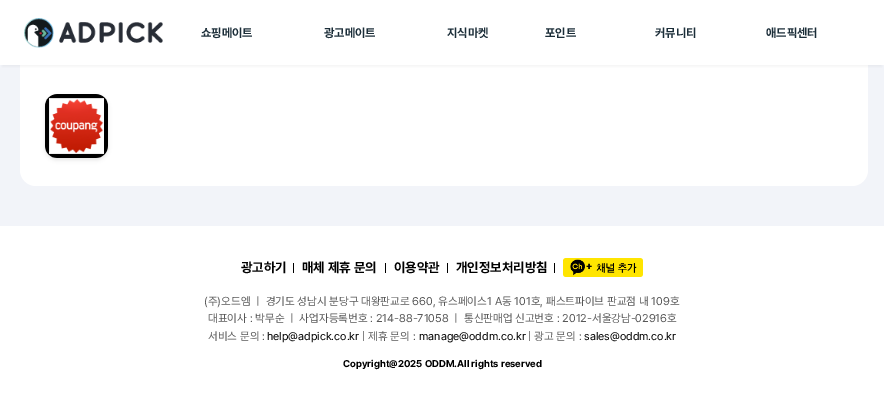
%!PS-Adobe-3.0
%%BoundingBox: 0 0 884 402
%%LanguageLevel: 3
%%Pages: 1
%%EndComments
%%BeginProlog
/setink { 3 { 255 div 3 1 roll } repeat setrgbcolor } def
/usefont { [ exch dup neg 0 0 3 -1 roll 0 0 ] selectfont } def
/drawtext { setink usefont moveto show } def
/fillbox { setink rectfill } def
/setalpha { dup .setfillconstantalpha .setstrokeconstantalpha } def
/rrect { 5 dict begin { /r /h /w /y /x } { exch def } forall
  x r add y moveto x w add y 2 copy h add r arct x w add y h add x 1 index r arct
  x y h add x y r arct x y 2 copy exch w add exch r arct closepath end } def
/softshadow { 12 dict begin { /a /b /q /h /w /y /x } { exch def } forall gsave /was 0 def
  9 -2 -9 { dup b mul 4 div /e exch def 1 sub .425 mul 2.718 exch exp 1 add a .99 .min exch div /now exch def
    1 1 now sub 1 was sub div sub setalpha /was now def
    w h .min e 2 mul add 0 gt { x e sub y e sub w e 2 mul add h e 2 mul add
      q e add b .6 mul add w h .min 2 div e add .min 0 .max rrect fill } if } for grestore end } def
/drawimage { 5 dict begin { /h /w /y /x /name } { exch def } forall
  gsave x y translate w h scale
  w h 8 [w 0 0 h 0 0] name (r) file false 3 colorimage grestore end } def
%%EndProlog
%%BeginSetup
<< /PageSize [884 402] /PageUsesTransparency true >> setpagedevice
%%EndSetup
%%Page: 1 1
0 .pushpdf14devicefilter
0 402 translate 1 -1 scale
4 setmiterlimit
0 0 884 402 242 244 249 fillbox
255 255 255 setink
20 21 848 165 16 rrect fill
0 0 0 setink
45 96 63 64 12 2 0.1 softshadow
(assets/img1.rgb) 45 94 63 64 drawimage
2 6 880 61 0 1 0.04 softshadow
0 0 884 65 255 255 255 fillbox
(assets/img2.rgb) 24 18 139 30 drawimage
(쇼핑메이트) 201 37 /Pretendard-Bold 12 27 45 56 drawtext
(광고메이트) 324 37 /Pretendard-Bold 12 27 45 56 drawtext
(지식마켓) 447 37 /Pretendard-Bold 12 27 45 56 drawtext
(포인트) 545 37 /Pretendard-Bold 12 27 45 56 drawtext
(커뮤니티) 655 37 /Pretendard-Bold 12 27 45 56 drawtext
(애드픽센터) 766 37 /Pretendard-Bold 12 27 45 56 drawtext
0 226 884 176 255 255 255 fillbox
(광고하기) 241 272 /Pretendard-Bold 13.25 0 0 0 drawtext
293 263 1 10 0 0 0 fillbox
(매체 제휴 문의) 302 272 /Pretendard-Bold 13.25 0 0 0 drawtext
385 263 1 10 0 0 0 fillbox
(이용약관) 394 272 /Pretendard-Bold 13.25 0 0 0 drawtext
447 263 1 10 0 0 0 fillbox
(개인정보처리방침) 456 272 /Pretendard-Bold 13.25 0 0 0 drawtext
554 263 1 10 0 0 0 fillbox
(assets/img3.rgb) 563 258 80 19 drawimage
(\(주\)오드엠 ㅣ 경기도 성남시 분당구 대왕판교로 660, 유스페이스1 A동 101호, 패스트파이브 판교점 내 109호) 204 305 /Pretendard-Regular 11.2 87 87 87 drawtext
(대표이사 : 박무순 ㅣ 사업자등록번호 : 214-88-71058 ㅣ 통신판매업 신고번호 : 2012-서울강남-02916호) 208 322 /Pretendard-Regular 11.2 87 87 87 drawtext
(서비스 문의 :) 208 340 /Pretendard-Regular 11.2 87 87 87 drawtext
(help@adpick.co.kr) 267 340 /Pretendard-Regular 11.2 0 0 0 drawtext
(| 제휴 문의 :) 362 340 /Pretendard-Regular 11.2 87 87 87 drawtext
(manage@oddm.co.kr) 419 340 /Pretendard-Regular 11.2 0 0 0 drawtext
(| 광고 문의 :) 528 340 /Pretendard-Regular 11.2 87 87 87 drawtext
(sales@oddm.co.kr) 584 340 /Pretendard-Regular 11.2 0 0 0 drawtext
(Copyright@2025 ODDM.All rights reserved) 343 367 /Pretendard-Bold 9.8 0 0 0 drawtext
.poppdf14devicefilter showpage
%%EOF
